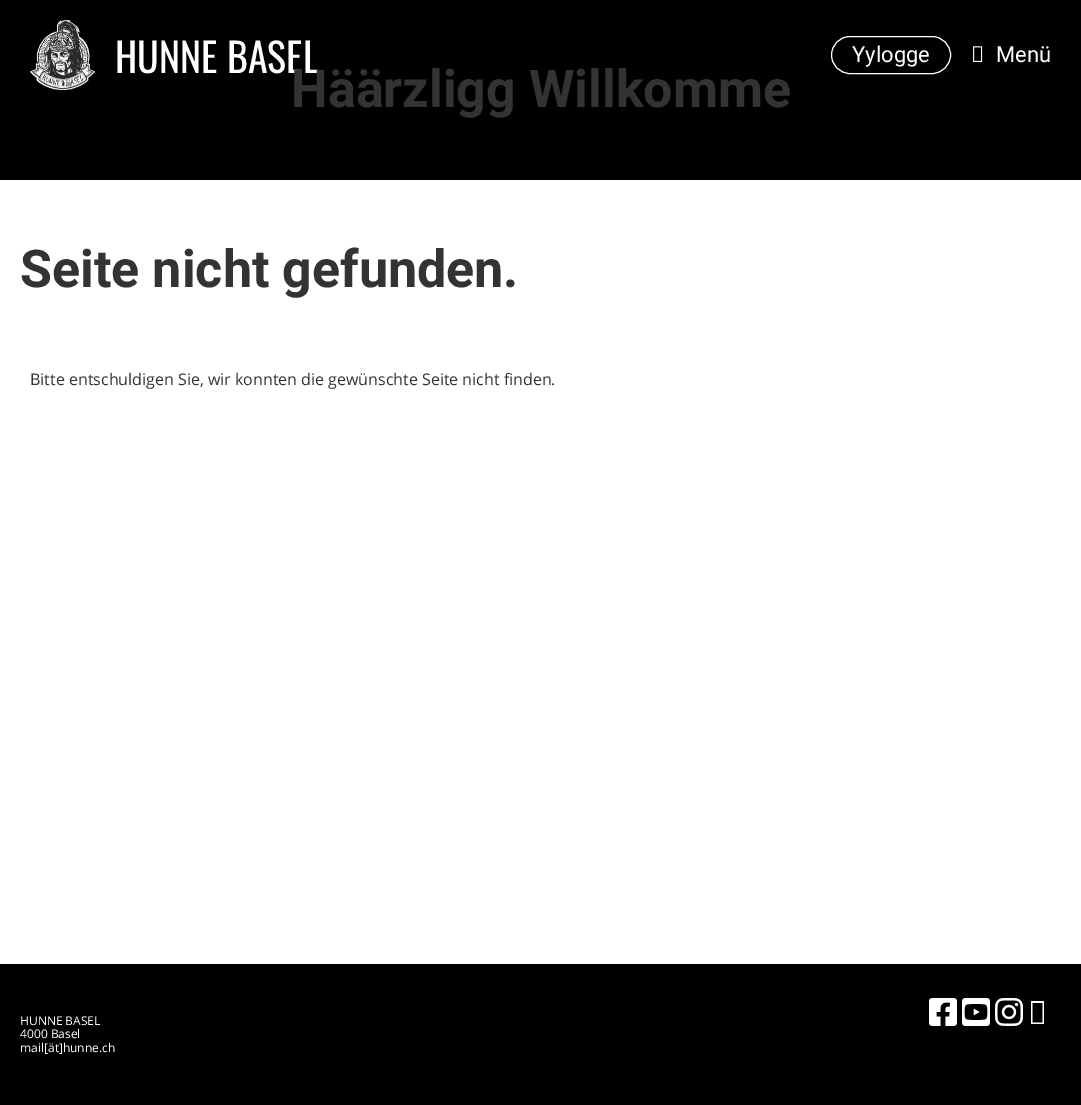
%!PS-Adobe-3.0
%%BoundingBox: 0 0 1081 1105
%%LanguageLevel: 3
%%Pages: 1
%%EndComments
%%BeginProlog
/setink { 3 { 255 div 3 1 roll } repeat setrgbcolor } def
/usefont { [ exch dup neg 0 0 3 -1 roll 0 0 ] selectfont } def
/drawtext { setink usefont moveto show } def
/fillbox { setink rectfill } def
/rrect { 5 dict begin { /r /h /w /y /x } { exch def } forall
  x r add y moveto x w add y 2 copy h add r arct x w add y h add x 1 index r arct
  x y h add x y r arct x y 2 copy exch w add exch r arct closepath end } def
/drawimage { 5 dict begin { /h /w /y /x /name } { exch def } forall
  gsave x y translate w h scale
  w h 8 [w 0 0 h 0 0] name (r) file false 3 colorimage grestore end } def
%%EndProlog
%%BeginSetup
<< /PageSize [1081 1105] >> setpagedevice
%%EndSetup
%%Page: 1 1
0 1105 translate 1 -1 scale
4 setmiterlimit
0 0 1081 1105 255 255 255 fillbox
0 0 1081 180 0 0 0 fillbox
(assets/img1.rgb) 30 20 65 70 drawimage
(HUNNE BASEL) 115 73 /Oswald-Regular 40 255 255 255 drawtext
831.5 36.5 119 37 18.5 rrect stroke
(Yylogge) 852 62 /Roboto-Regular 22 255 255 255 drawtext
(assets/img2.rgb) 973 46 10 16 drawimage
(Menü) 996 62 /Roboto-Regular 22 255 255 255 drawtext
(Häärzligg Willkomme) 291 107 /Roboto-Bold 52 51 51 51 drawtext
(Seite nicht gefunden.) 20 287 /Roboto-Bold 52 51 51 51 drawtext
(Bitte entschuldigen Sie, wir konnten die gewünschte Seite nicht finden.) 30 385 /OpenSans-Regular 16 51 51 51 drawtext
0 964 1081 141 0 0 0 fillbox
(assets/img3.rgb) 929 998 28 28 drawimage
(assets/img4.rgb) 962 998 28 28 drawimage
(assets/img5.rgb) 995 998 28 28 drawimage
255 255 255 setink
1031 1024 moveto 1031 1001 lineto 1044 1001 lineto 1044 1024 lineto closepath 1032.5 1022.5 moveto 1042.5 1022.5 lineto 1042.5 1003 lineto 1032.5 1003 lineto closepath fill
(HUNNE BASEL) 20 1025 /OpenSans-Regular 12 255 255 255 drawtext
(4000 Basel) 20 1038 /OpenSans-Regular 12 255 255 255 drawtext
(mail[ät]hunne.ch) 20 1052 /OpenSans-Regular 12 255 255 255 drawtext
showpage
%%EOF
